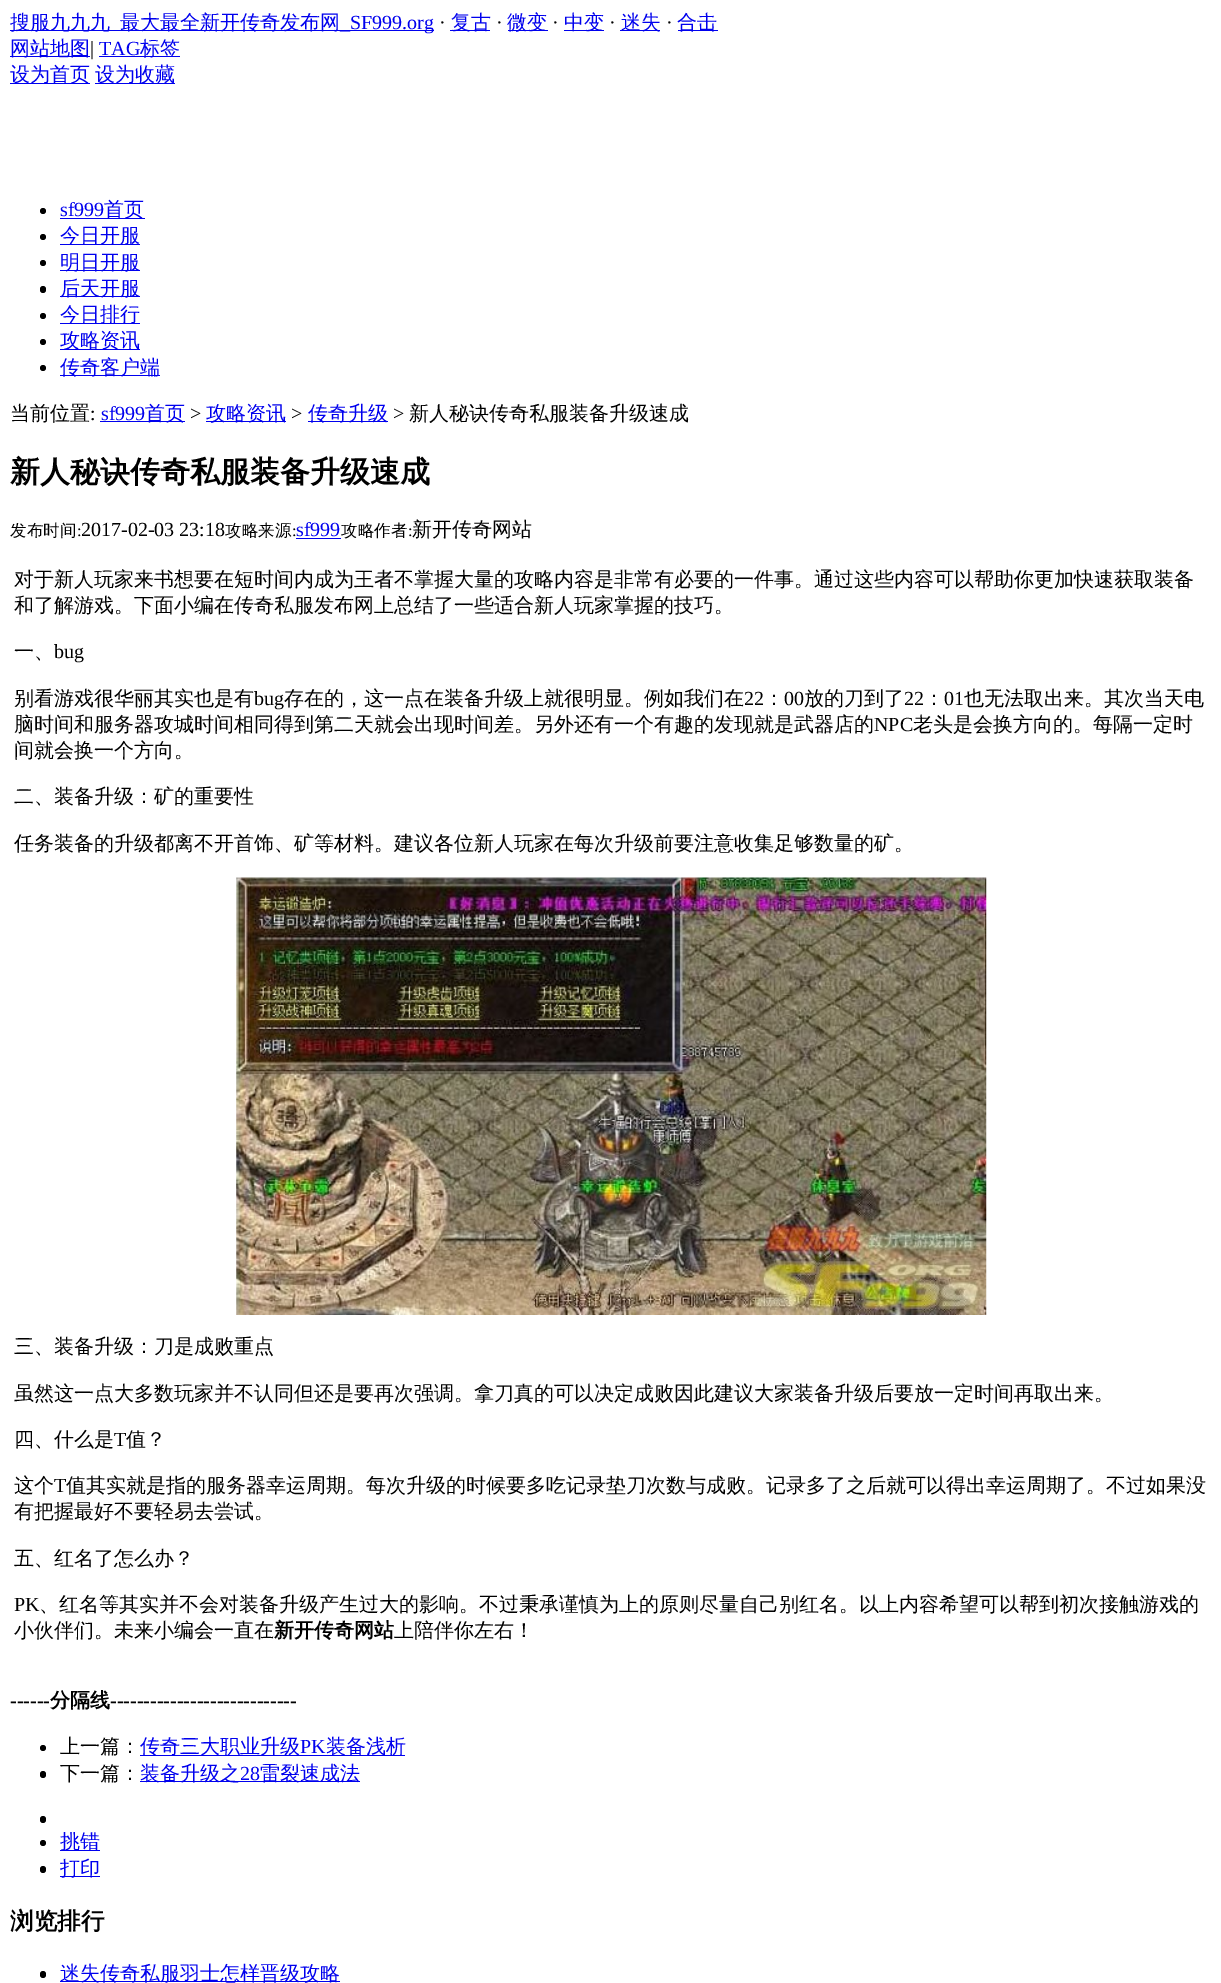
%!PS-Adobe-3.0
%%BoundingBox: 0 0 1221 1983
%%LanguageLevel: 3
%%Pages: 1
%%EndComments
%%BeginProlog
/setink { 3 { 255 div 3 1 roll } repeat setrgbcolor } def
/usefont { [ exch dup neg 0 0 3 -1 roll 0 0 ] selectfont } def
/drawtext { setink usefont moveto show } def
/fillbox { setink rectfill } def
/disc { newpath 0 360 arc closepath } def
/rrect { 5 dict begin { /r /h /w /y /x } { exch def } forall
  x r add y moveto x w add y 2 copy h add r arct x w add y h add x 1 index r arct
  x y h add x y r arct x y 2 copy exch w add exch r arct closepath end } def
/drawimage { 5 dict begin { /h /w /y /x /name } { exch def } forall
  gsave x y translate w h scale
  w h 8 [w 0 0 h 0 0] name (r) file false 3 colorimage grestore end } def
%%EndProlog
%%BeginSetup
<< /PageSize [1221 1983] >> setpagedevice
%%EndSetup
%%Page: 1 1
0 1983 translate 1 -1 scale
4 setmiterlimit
0 0 1221 1983 255 255 255 fillbox
10 30 424 1 0 0 238 fillbox
(搜服九九九) 10 29 /WenQuanYiZenHei-Medium 20 0 0 238 drawtext
(最大最全新开传奇发布网) 120 29 /WenQuanYiZenHei-Medium 20 0 0 238 drawtext
(_SF999.org) 340 29 /LiberationSerif-Regular 20 0 0 238 drawtext
(·) 439 29 /LiberationSerif-Regular 20 0 0 0 drawtext
450 30 40 1 0 0 238 fillbox
(复古) 451 29 /WenQuanYiZenHei-Medium 20 0 0 238 drawtext
(·) 496 29 /LiberationSerif-Regular 20 0 0 0 drawtext
508 30 40 1 0 0 238 fillbox
(微变) 507 29 /WenQuanYiZenHei-Medium 20 0 0 238 drawtext
(·) 552 29 /LiberationSerif-Regular 20 0 0 0 drawtext
564 30 40 1 0 0 238 fillbox
(中变) 564 29 /WenQuanYiZenHei-Medium 20 0 0 238 drawtext
(·) 609 29 /LiberationSerif-Regular 20 0 0 0 drawtext
620 30 40 1 0 0 238 fillbox
(迷失) 621 29 /WenQuanYiZenHei-Medium 20 0 0 238 drawtext
(·) 666 29 /LiberationSerif-Regular 20 0 0 0 drawtext
678 30 40 1 0 0 238 fillbox
(合击) 677 29 /WenQuanYiZenHei-Medium 20 0 0 238 drawtext
10 56 80 1 0 0 238 fillbox
(网站地图) 10 55 /WenQuanYiZenHei-Medium 20 0 0 238 drawtext
(|) 90 55 /LiberationSerif-Regular 20 0 0 0 drawtext
(TAG) 99 55 /LiberationSerif-Regular 20 0 0 238 drawtext
99 56 81 1 0 0 238 fillbox
(标签) 140 55 /WenQuanYiZenHei-Medium 20 0 0 238 drawtext
10 83 80 1 0 0 238 fillbox
(设为首页) 10 81 /WenQuanYiZenHei-Medium 20 0 0 238 drawtext
95 83 80 1 0 0 238 fillbox
(设为收藏) 95 81 /WenQuanYiZenHei-Medium 20 0 0 238 drawtext
0 0 0 setink
43 211 3 disc fill
(sf999) 60 216 /LiberationSerif-Regular 20 0 0 238 drawtext
60 218 85 1 0 0 238 fillbox
(首页) 104 216 /WenQuanYiZenHei-Medium 20 0 0 238 drawtext
0 0 0 setink
43 237 3 disc fill
60 244 80 1 0 0 238 fillbox
(今日开服) 60 242 /WenQuanYiZenHei-Medium 20 0 0 238 drawtext
0 0 0 setink
43 263 3 disc fill
60 270 80 1 0 0 238 fillbox
(明日开服) 60 269 /WenQuanYiZenHei-Medium 20 0 0 238 drawtext
0 0 0 setink
40 286 6 7 3 rrect fill
60 296 80 1 0 0 238 fillbox
(后天开服) 60 295 /WenQuanYiZenHei-Medium 20 0 0 238 drawtext
0 0 0 setink
43 316 3 disc fill
60 323 80 1 0 0 238 fillbox
(今日排行) 60 321 /WenQuanYiZenHei-Medium 20 0 0 238 drawtext
0 0 0 setink
43 342 3 disc fill
60 349 80 1 0 0 238 fillbox
(攻略资讯) 60 347 /WenQuanYiZenHei-Medium 20 0 0 238 drawtext
0 0 0 setink
43 368 3 disc fill
60 375 100 1 0 0 238 fillbox
(传奇客户端) 60 374 /WenQuanYiZenHei-Medium 20 0 0 238 drawtext
(当前位置) 10 420 /WenQuanYiZenHei-Medium 20 0 0 0 drawtext
(:) 90 420 /LiberationSerif-Regular 20 0 0 0 drawtext
(sf999) 101 420 /LiberationSerif-Regular 20 0 0 238 drawtext
100 421 85 1 0 0 238 fillbox
(首页) 145 420 /WenQuanYiZenHei-Medium 20 0 0 238 drawtext
(>) 190 420 /LiberationSerif-Regular 20 0 0 0 drawtext
206 421 80 1 0 0 238 fillbox
(攻略资讯) 206 420 /WenQuanYiZenHei-Medium 20 0 0 238 drawtext
(>) 291 420 /LiberationSerif-Regular 20 0 0 0 drawtext
308 421 80 1 0 0 238 fillbox
(传奇升级) 308 420 /WenQuanYiZenHei-Medium 20 0 0 238 drawtext
(>) 393 420 /LiberationSerif-Regular 20 0 0 0 drawtext
(新人秘诀传奇私服装备升级速成) 409 420 /WenQuanYiZenHei-Medium 20 0 0 0 drawtext
(新人秘诀传奇私服装备升级速成) 10 482 /WenQuanYiZenHei-Bold 30 0 0 0 drawtext
(发布时间) 10 536 /WenQuanYiZenHei-Medium 16.5 0 0 0 drawtext
(:) 77 536 /LiberationSerif-Regular 16.5 0 0 0 drawtext
(2017-02-03 23:18) 81 536 /LiberationSerif-Regular 20 0 0 0 drawtext
(攻略来源) 225 536 /WenQuanYiZenHei-Medium 16.5 0 0 0 drawtext
(:) 292 536 /LiberationSerif-Regular 16.5 0 0 0 drawtext
(sf999) 296 536 /LiberationSerif-Regular 20 0 0 238 drawtext
296 538 45 1 0 0 238 fillbox
(攻略作者) 341 536 /WenQuanYiZenHei-Medium 16.5 0 0 0 drawtext
(:) 408 536 /LiberationSerif-Regular 16.5 0 0 0 drawtext
(新开传奇网站) 412 536 /WenQuanYiZenHei-Medium 20 0 0 0 drawtext
(对于新人玩家来书想要在短时间内成为王者不掌握大量的攻略内容是非常有必要的一件事。通过这些内容可以帮助你更加快速获取装备) 14 586 /WenQuanYiZenHei-Medium 20 0 0 0 drawtext
(和了解游戏。下面小编在传奇私服发布网上总结了一些适合新人玩家掌握的技巧。) 14 612 /WenQuanYiZenHei-Medium 20 0 0 0 drawtext
(一、) 14 658 /WenQuanYiZenHei-Medium 20 0 0 0 drawtext
(bug) 54 658 /LiberationSerif-Regular 20 0 0 0 drawtext
(别看游戏很华丽其实也是有) 14 705 /WenQuanYiZenHei-Medium 20 0 0 0 drawtext
(bug) 254 705 /LiberationSerif-Regular 20 0 0 0 drawtext
(存在的，这一点在装备升级上就很明显。例如我们在) 284 705 /WenQuanYiZenHei-Medium 20 0 0 0 drawtext
(22) 744 705 /LiberationSerif-Regular 20 0 0 0 drawtext
(：) 764 705 /WenQuanYiZenHei-Medium 20 0 0 0 drawtext
(00) 784 705 /LiberationSerif-Regular 20 0 0 0 drawtext
(放的刀到了) 804 705 /WenQuanYiZenHei-Medium 20 0 0 0 drawtext
(22) 904 705 /LiberationSerif-Regular 20 0 0 0 drawtext
(：) 924 705 /WenQuanYiZenHei-Medium 20 0 0 0 drawtext
(01) 944 705 /LiberationSerif-Regular 20 0 0 0 drawtext
(也无法取出来。其次当天电) 964 705 /WenQuanYiZenHei-Medium 20 0 0 0 drawtext
(脑时间和服务器攻城时间相同得到第二天就会出现时间差。另外还有一个有趣的发现就是武器店的) 14 731 /WenQuanYiZenHei-Medium 20 0 0 0 drawtext
(NPC) 874 731 /LiberationSerif-Regular 20 0 0 0 drawtext
(老头是会换方向的。每隔一定时) 913 731 /WenQuanYiZenHei-Medium 20 0 0 0 drawtext
(间就会换一个方向。) 14 757 /WenQuanYiZenHei-Medium 20 0 0 0 drawtext
(二、装备升级：矿的重要性) 14 803 /WenQuanYiZenHei-Medium 20 0 0 0 drawtext
(任务装备的升级都离不开首饰、矿等材料。建议各位新人玩家在每次升级前要注意收集足够数量的矿。) 14 850 /WenQuanYiZenHei-Medium 20 0 0 0 drawtext
(assets/img1.rgb) 236 877 751 438 drawimage
(三、装备升级：刀是成败重点) 14 1353 /WenQuanYiZenHei-Medium 20 0 0 0 drawtext
(虽然这一点大多数玩家并不认同但还是要再次强调。拿刀真的可以决定成败因此建议大家装备升级后要放一定时间再取出来。) 14 1400 /WenQuanYiZenHei-Medium 20 0 0 0 drawtext
(四、什么是) 14 1446 /WenQuanYiZenHei-Medium 20 0 0 0 drawtext
(T) 114 1446 /LiberationSerif-Regular 20 0 0 0 drawtext
(值？) 126 1446 /WenQuanYiZenHei-Medium 20 0 0 0 drawtext
(这个) 14 1492 /WenQuanYiZenHei-Medium 20 0 0 0 drawtext
(T) 54 1492 /LiberationSerif-Regular 20 0 0 0 drawtext
(值其实就是指的服务器幸运周期。每次升级的时候要多吃记录垫刀次数与成败。记录多了之后就可以得出幸运周期了。不过如果没) 66 1492 /WenQuanYiZenHei-Medium 20 0 0 0 drawtext
(有把握最好不要轻易去尝试。) 14 1518 /WenQuanYiZenHei-Medium 20 0 0 0 drawtext
(五、红名了怎么办？) 14 1565 /WenQuanYiZenHei-Medium 20 0 0 0 drawtext
(PK) 14 1611 /LiberationSerif-Regular 20 0 0 0 drawtext
(、红名等其实并不会对装备升级产生过大的影响。不过秉承谨慎为上的原则尽量自己别红名。以上内容希望可以帮到初次接触游戏的) 39 1611 /WenQuanYiZenHei-Medium 20 0 0 0 drawtext
(小伙伴们。未来小编会一直在) 14 1637 /WenQuanYiZenHei-Medium 20 0 0 0 drawtext
(新开传奇网站) 274 1637 /WenQuanYiZenHei-Bold 20 0 0 0 drawtext
(上陪伴你左右！) 394 1637 /WenQuanYiZenHei-Medium 20 0 0 0 drawtext
(------) 10 1707 /LiberationSerif-Bold 20 0 0 0 drawtext
(分隔线) 50 1707 /WenQuanYiZenHei-Bold 20 0 0 0 drawtext
(----------------------------) 110 1707 /LiberationSerif-Bold 20 0 0 0 drawtext
43 1748 3 disc fill
(上一篇：) 60 1753 /WenQuanYiZenHei-Medium 20 0 0 0 drawtext
140 1755 265 1 0 0 238 fillbox
(传奇三大职业升级) 140 1753 /WenQuanYiZenHei-Medium 20 0 0 238 drawtext
(PK) 300 1753 /LiberationSerif-Regular 20 0 0 238 drawtext
(装备浅析) 326 1753 /WenQuanYiZenHei-Medium 20 0 0 238 drawtext
0 0 0 setink
40 1771 6 7 3 rrect fill
(下一篇：) 60 1780 /WenQuanYiZenHei-Medium 20 0 0 0 drawtext
140 1781 220 1 0 0 238 fillbox
(装备升级之) 140 1780 /WenQuanYiZenHei-Medium 20 0 0 238 drawtext
(28) 240 1780 /LiberationSerif-Regular 20 0 0 238 drawtext
(雷裂速成法) 260 1780 /WenQuanYiZenHei-Medium 20 0 0 238 drawtext
0 0 0 setink
40 1816 6 7 3 rrect fill
43 1843 3 disc fill
60 1850 40 1 0 0 238 fillbox
(挑错) 60 1848 /WenQuanYiZenHei-Medium 20 0 0 238 drawtext
0 0 0 setink
40 1866 6 7 3 rrect fill
60 1876 40 1 0 0 238 fillbox
(打印) 60 1875 /WenQuanYiZenHei-Medium 20 0 0 238 drawtext
(浏览排行) 10 1929 /WenQuanYiZenHei-Bold 23.5 0 0 0 drawtext
40 1971 6 7 3 rrect fill
60 1981 280 1 0 0 238 fillbox
(迷失传奇私服羽士怎样晋级攻略) 60 1980 /WenQuanYiZenHei-Medium 20 0 0 238 drawtext
showpage
%%EOF
